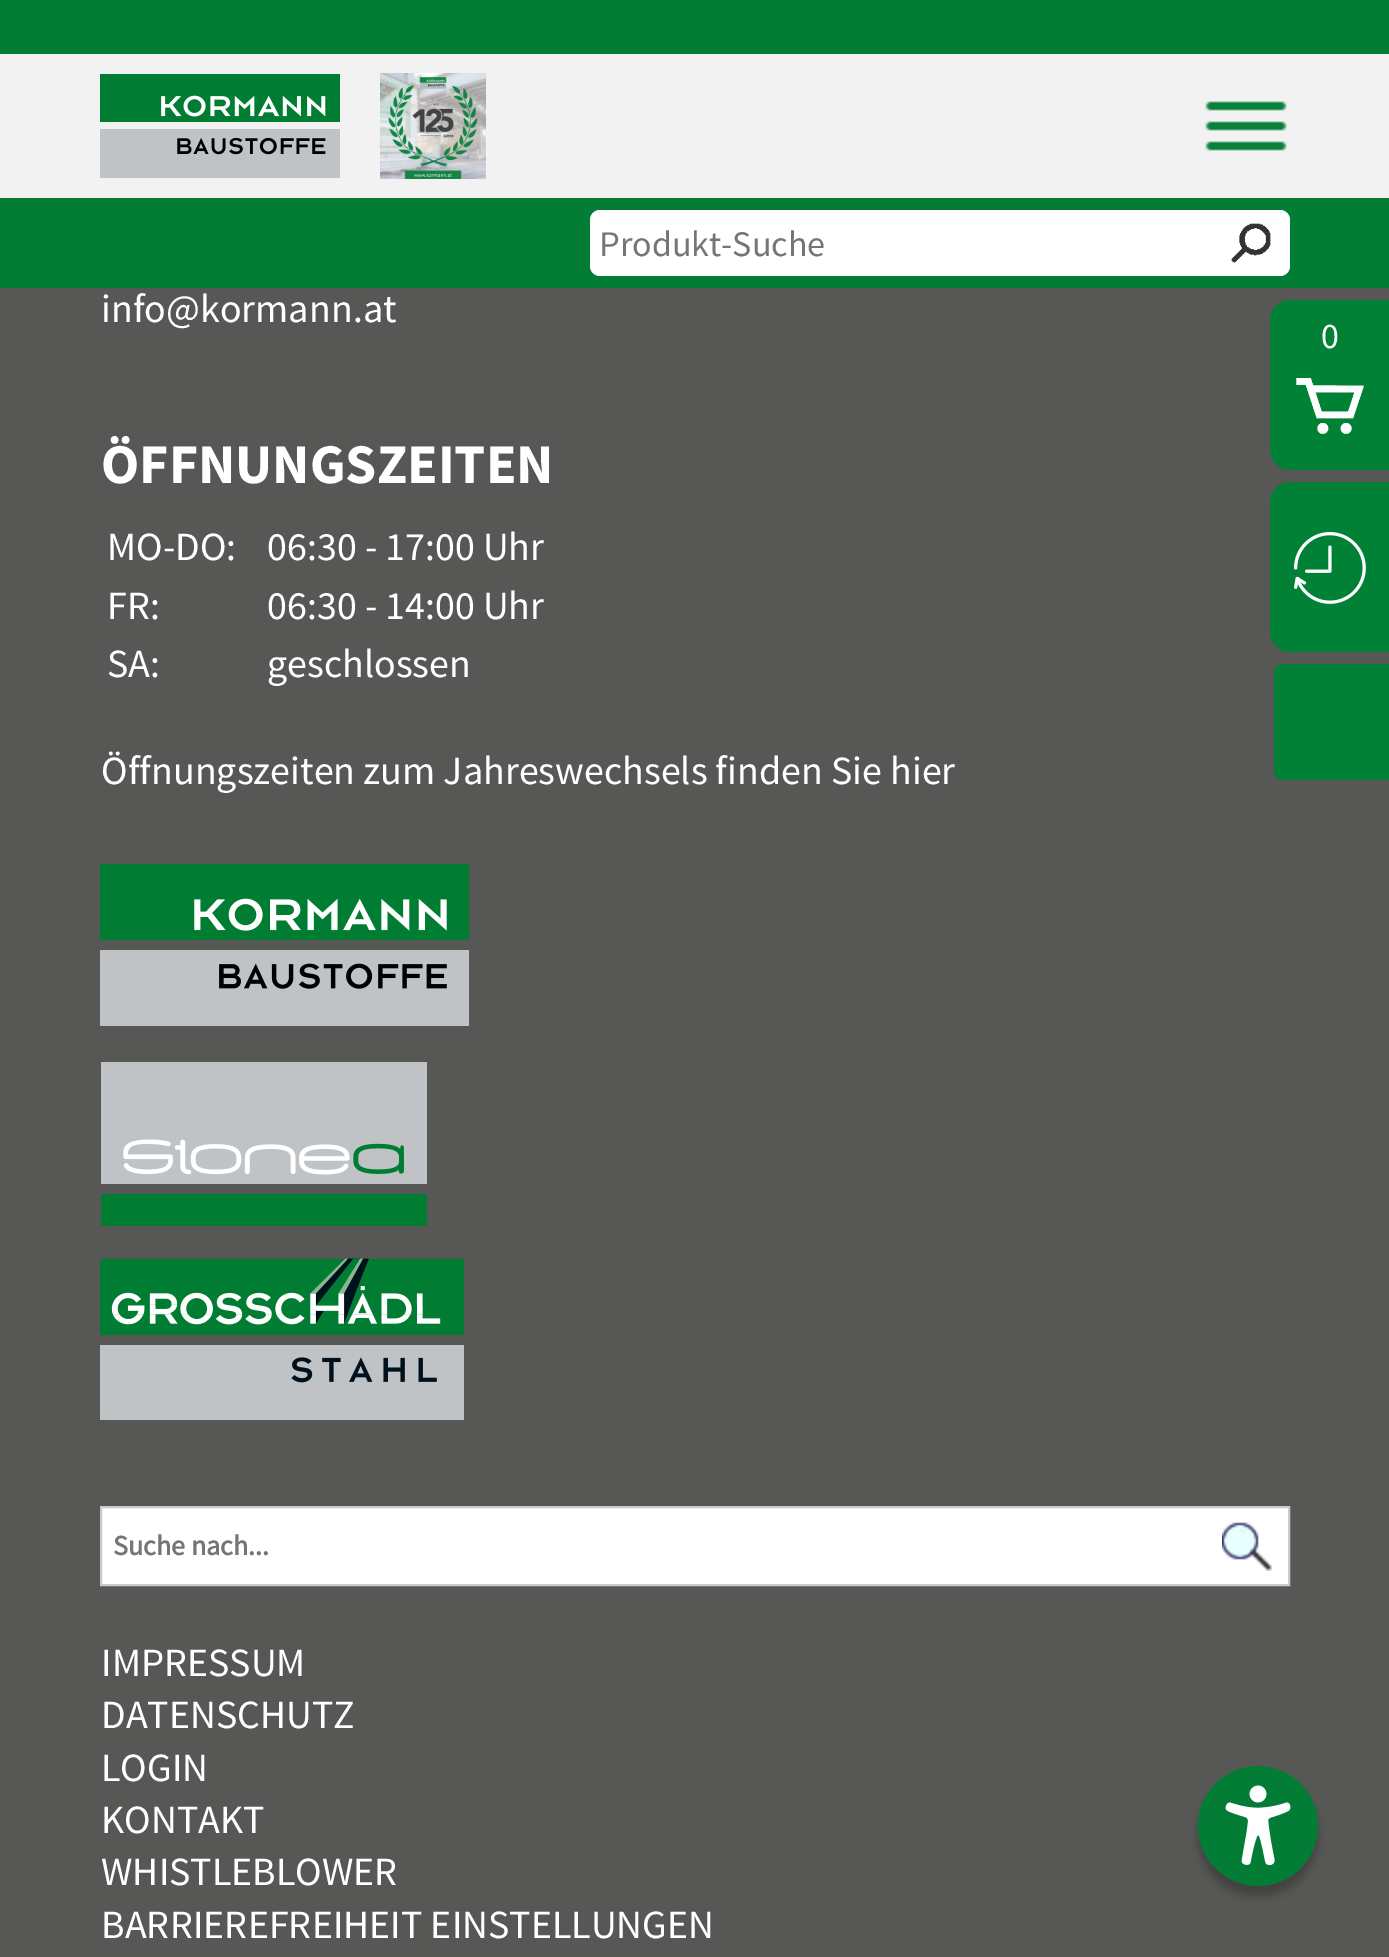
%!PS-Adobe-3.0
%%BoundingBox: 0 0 1389 1957
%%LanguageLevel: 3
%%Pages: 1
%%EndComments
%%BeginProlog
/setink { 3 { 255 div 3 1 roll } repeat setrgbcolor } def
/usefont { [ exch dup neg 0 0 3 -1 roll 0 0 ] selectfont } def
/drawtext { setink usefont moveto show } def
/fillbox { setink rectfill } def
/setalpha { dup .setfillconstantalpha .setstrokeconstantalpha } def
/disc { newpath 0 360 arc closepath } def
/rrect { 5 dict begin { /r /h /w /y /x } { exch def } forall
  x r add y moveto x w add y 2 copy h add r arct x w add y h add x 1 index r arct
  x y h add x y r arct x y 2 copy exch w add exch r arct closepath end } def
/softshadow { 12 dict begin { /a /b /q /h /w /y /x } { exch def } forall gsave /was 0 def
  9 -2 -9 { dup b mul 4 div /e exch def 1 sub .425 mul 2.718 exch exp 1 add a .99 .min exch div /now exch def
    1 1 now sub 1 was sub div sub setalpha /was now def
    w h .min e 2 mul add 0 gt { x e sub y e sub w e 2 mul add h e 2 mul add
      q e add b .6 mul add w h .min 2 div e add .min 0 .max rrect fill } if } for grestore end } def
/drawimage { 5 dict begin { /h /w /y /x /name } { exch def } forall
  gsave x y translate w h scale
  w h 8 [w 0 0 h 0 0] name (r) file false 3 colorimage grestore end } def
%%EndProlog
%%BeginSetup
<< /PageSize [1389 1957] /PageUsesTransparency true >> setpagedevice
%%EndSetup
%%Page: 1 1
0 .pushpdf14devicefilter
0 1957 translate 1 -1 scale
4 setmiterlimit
0 0 1389 1957 87 87 86 fillbox
0 54 1389 144 242 242 242 fillbox
0 0 1389 54 3 125 54 fillbox
(assets/img1.rgb) 100 74 240 104 drawimage
(assets/img2.rgb) 380 73 106 106 drawimage
(assets/img3.rgb) 1205 101 82 50 drawimage
0 198 1389 90 3 125 54 fillbox
255 255 255 setink
590 210 700 66 10 rrect fill
(Produkt-Suche) 599 256 /SourceSansPro-Regular 36 117 117 117 drawtext
255 255 255 setink
1220 212 70 62 10 rrect fill
(assets/img4.rgb) 1231 223 40 40 drawimage
(info@kormann.at) 101 322 /SourceSansPro-Regular 40 255 255 255 drawtext
(ÖFFNUNGSZEITEN) 101 483 /SourceSansPro-Bold 56 255 255 255 drawtext
(MO-DO:) 107 560 /SourceSansPro-Regular 40 255 255 255 drawtext
(06:30 - 17:00 Uhr) 267 560 /SourceSansPro-Regular 40 255 255 255 drawtext
(FR:) 107 619 /SourceSansPro-Regular 40 255 255 255 drawtext
(06:30 - 14:00 Uhr) 267 619 /SourceSansPro-Regular 40 255 255 255 drawtext
(SA:) 107 677 /SourceSansPro-Regular 40 255 255 255 drawtext
(geschlossen) 267 677 /SourceSansPro-Regular 40 255 255 255 drawtext
(Öffnungszeiten zum Jahreswechsels finden Sie hier) 101 784 /SourceSansPro-Regular 40 255 255 255 drawtext
(assets/img5.rgb) 100 864 369 162 drawimage
(assets/img6.rgb) 101 1062 326 164 drawimage
(assets/img7.rgb) 100 1258 364 162 drawimage
101 1507 moveto 1289 1507 lineto 1289 1585 lineto 101 1585 lineto closepath gsave fill grestore
202 202 202 setink
2 setlinewidth
stroke
(Suche nach...) 113 1555 /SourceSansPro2-Bold 28 117 117 117 drawtext
(assets/img8.rgb) 1222 1522 50 49 drawimage
(IMPRESSUM) 101 1676 /SourceSansPro-Regular 40 255 255 255 drawtext
(DATENSCHUTZ) 101 1728 /SourceSansPro-Regular 40 255 255 255 drawtext
(LOGIN) 101 1781 /SourceSansPro-Regular 40 255 255 255 drawtext
(KONTAKT) 101 1833 /SourceSansPro-Regular 40 255 255 255 drawtext
(WHISTLEBLOWER) 101 1885 /SourceSansPro-Regular 40 255 255 255 drawtext
(BARRIEREFREIHEIT EINSTELLUNGEN) 101 1938 /SourceSansPro-Regular 40 255 255 255 drawtext
0 129 53 setink
1290 300 moveto 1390 300 lineto 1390 470 lineto 1290 470 lineto 1279 470 1270 461 1270 450 curveto 1270 320 lineto 1270 309 1279 300 1290 300 curveto closepath fill
(assets/img9.rgb) 1296 378 68 56 drawimage
(0) 1321 348 /SourceSansPro-Regular 36 255 255 255 drawtext
0 129 53 setink
1290 482 moveto 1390 482 lineto 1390 652 lineto 1290 652 lineto 1279 652 1270 643 1270 632 curveto 1270 502 lineto 1270 491 1279 482 1290 482 curveto closepath fill
(assets/img10.rgb) 1294 532 72 72 drawimage
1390 780 moveto 1282 780 lineto 1278 780 1274 776 1274 772 curveto 1274 672 lineto 1274 668 1278 664 1282 664 curveto 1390 664 lineto closepath fill
0 0 0 setink
1198 1776 120 120 60 4 0.26 softshadow
3 125 54 setink
1258 1826 60 disc fill
(assets/img11.rgb) 1225 1785 66 81 drawimage
.poppdf14devicefilter showpage
%%EOF
